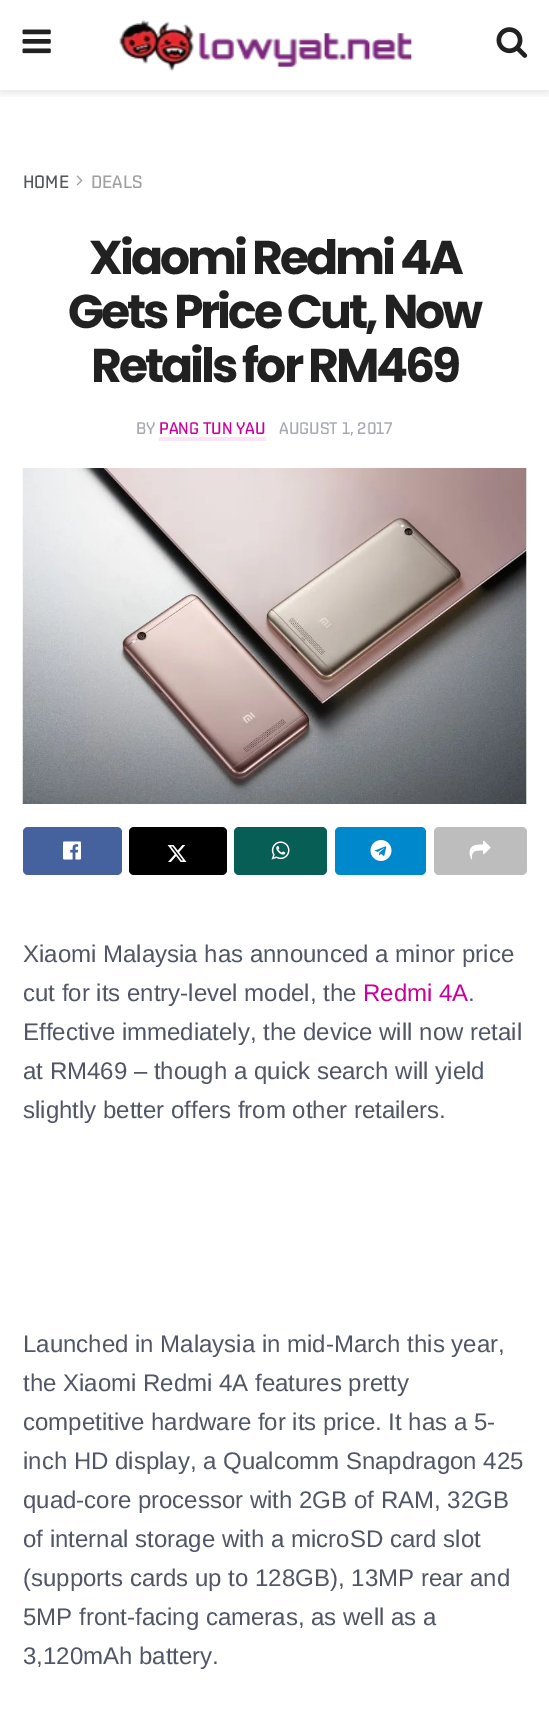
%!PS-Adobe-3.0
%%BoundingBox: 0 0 549 1727
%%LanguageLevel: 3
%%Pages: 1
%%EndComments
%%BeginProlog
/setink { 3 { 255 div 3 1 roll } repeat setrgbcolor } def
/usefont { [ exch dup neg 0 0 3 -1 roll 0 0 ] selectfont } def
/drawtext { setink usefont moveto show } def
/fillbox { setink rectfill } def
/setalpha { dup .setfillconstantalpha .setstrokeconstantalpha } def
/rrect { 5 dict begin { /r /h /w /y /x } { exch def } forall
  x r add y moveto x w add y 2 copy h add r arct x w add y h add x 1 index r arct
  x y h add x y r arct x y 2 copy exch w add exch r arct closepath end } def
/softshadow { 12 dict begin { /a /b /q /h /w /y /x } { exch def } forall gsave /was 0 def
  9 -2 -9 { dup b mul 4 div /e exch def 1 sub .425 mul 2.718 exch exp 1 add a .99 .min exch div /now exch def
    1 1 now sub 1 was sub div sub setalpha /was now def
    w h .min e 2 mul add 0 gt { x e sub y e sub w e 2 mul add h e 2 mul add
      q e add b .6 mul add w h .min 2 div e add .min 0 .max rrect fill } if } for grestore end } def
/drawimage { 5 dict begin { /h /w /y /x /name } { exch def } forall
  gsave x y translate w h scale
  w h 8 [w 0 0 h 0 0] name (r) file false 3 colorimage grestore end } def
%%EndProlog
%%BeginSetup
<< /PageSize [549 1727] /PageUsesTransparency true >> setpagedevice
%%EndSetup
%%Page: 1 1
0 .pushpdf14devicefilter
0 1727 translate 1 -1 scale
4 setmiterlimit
0 0 549 1727 255 255 255 fillbox
gsave
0 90 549 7 rectclip
0 0 0 setink
0 3 549 90 0 4.5 0.1 softshadow
grestore
(assets/img1.rgb) 22 29 29 25 drawimage
(assets/img2.rgb) 119 20 294 51 drawimage
(assets/img3.rgb) 496 27 32 31 drawimage
(HOME) 23 188 /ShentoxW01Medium-Medium 18 83 88 92 drawtext
(assets/img4.rgb) 76 175 7 11 drawimage
(DEALS) 91 188 /ShentoxW01Medium-Medium 18 160 160 160 drawtext
/Poppins-Bold 47.25 usefont
33 33 33 setink
89 274 moveto -3 0 (Xiaomi Redmi 4A) ashow
68 328 moveto -3 0 (Gets Price Cut, Now) ashow
91 382 moveto -3 0 (Retails for RM469) ashow
(BY) 136 434 /ShentoxW01Medium-Medium 16.75 167 170 178 drawtext
(PANG TUN YAU) 159 434 /ShentoxW01Medium-Medium 16.75 204 0 153 drawtext
159 437 107 4 250 229 245 fillbox
(AUGUST 1, 2017) 279 434 /ShentoxW01Medium-Medium 16.75 167 170 178 drawtext
526 468 1 336 247 247 247 fillbox
(assets/img5.rgb) 22 468 505 336 drawimage
69 98 159 setink
23 827 99 48 5 rrect fill
(assets/img6.rgb) 63 841 18 19 drawimage
0 0 0 setink
129 827 98 48 5 rrect fill
(assets/img7.rgb) 167 845 20 17 drawimage
7 94 84 setink
234 827 93 48 5 rrect fill
(assets/img8.rgb) 271 841 19 19 drawimage
0 136 204 setink
335 827 91 48 5 rrect fill
(assets/img9.rgb) 370 840 22 21 drawimage
189 189 189 setink
434 827 93 48 5 rrect fill
(assets/img10.rgb) 469 840 22 20 drawimage
(Xiaomi Malaysia has announced a minor price) 23 962 /Arimo-Regular 24 80 86 102 drawtext
(cut for its entry-level model, the) 23 1001 /Arimo-Regular 24 80 86 102 drawtext
(Redmi 4A) 363 1001 /Arimo-Regular 24 204 0 153 drawtext
(.) 468 1001 /Arimo-Regular 24 80 86 102 drawtext
(Effective immediately, the device will now retail) 23 1040 /Arimo-Regular 24 80 86 102 drawtext
(at RM469 – though a quick search will yield) 23 1079 /Arimo-Regular 24 80 86 102 drawtext
(slightly better offers from other retailers.) 23 1118 /Arimo-Regular 24 80 86 102 drawtext
(Launched in Malaysia in mid-March this year,) 23 1352 /Arimo-Regular 24 80 86 102 drawtext
(the Xiaomi Redmi 4A features pretty) 23 1391 /Arimo-Regular 24 80 86 102 drawtext
(competitive hardware for its price. It has a 5-) 23 1430 /Arimo-Regular 24 80 86 102 drawtext
(inch HD display, a Qualcomm Snapdragon 425) 23 1469 /Arimo-Regular 24 80 86 102 drawtext
(quad-core processor with 2GB of RAM, 32GB) 23 1508 /Arimo-Regular 24 80 86 102 drawtext
(of internal storage with a microSD card slot) 23 1547 /Arimo-Regular 24 80 86 102 drawtext
(\(supports cards up to 128GB\), 13MP rear and) 23 1586 /Arimo-Regular 24 80 86 102 drawtext
(5MP front-facing cameras, as well as a) 23 1625 /Arimo-Regular 24 80 86 102 drawtext
(3,120mAh battery.) 23 1664 /Arimo-Regular 24 80 86 102 drawtext
.poppdf14devicefilter showpage
%%EOF
